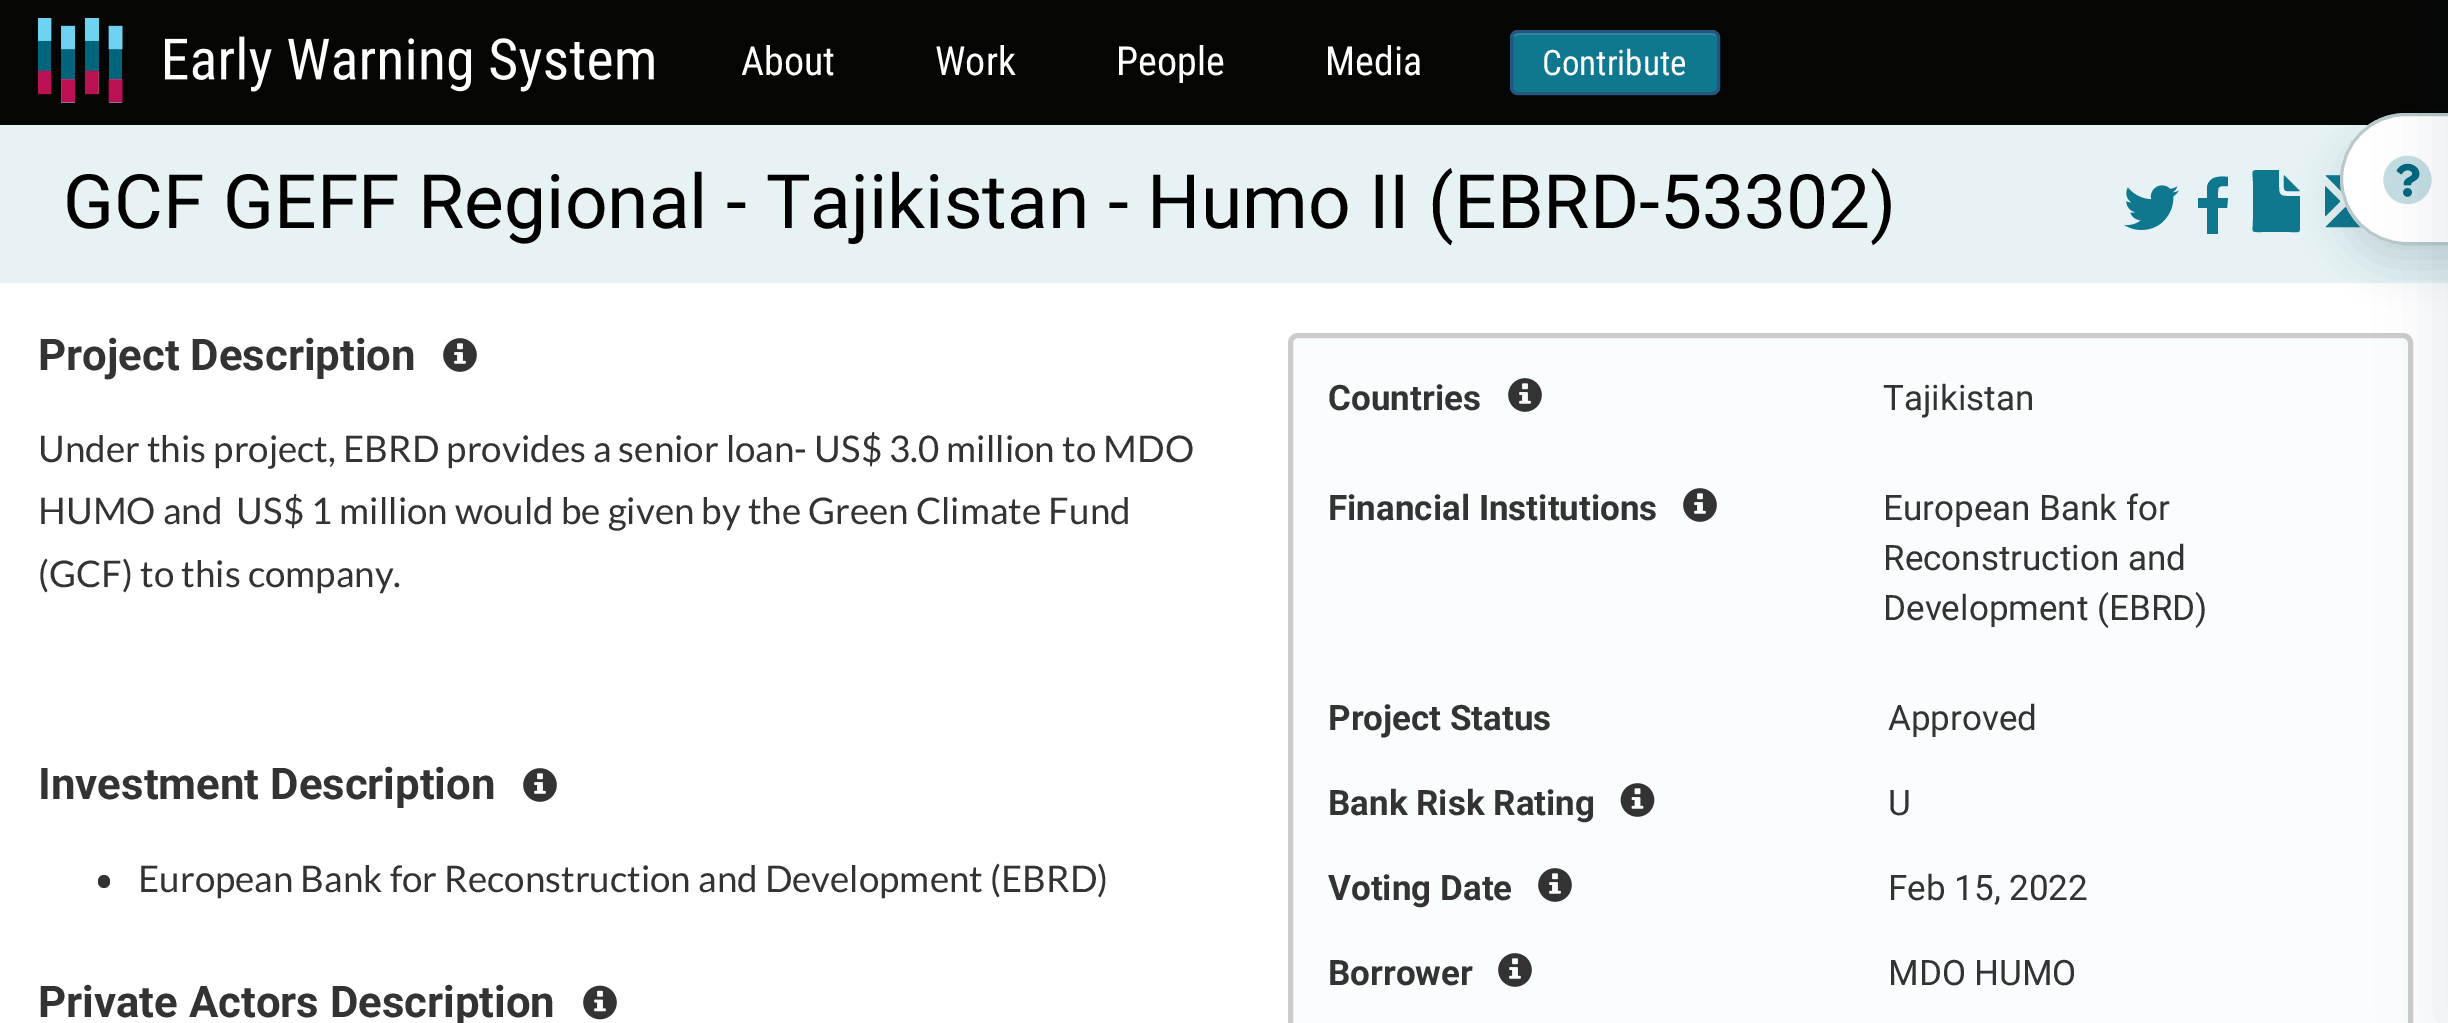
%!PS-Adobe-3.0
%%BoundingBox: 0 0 2448 1023
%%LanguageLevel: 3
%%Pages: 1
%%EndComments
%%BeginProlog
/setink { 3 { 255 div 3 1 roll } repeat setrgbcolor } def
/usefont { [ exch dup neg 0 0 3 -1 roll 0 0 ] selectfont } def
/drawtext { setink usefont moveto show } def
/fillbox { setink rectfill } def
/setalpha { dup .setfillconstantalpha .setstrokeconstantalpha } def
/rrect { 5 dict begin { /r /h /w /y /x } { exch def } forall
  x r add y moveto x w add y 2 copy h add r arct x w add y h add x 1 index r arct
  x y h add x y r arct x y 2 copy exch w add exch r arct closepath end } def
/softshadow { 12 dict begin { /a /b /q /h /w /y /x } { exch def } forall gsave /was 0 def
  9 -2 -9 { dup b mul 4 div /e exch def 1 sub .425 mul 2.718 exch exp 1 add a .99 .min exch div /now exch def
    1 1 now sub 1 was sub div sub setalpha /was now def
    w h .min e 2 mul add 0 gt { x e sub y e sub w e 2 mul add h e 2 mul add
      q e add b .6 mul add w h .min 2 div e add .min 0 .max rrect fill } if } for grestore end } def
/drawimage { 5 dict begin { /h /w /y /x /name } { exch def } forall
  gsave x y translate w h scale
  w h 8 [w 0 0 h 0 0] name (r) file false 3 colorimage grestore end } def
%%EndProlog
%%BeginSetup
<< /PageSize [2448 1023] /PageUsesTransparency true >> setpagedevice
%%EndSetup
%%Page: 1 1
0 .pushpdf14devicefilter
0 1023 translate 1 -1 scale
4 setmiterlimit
0 0 2448 1023 255 255 255 fillbox
0 0 2448 125 5 5 4 fillbox
(assets/img1.rgb) 38 18 616 85 drawimage
(About) 741 75 /RobotoCondensed-Regular 40 255 255 255 drawtext
(Work) 935 75 /RobotoCondensed-Regular 40 255 255 255 drawtext
(People) 1116 75 /RobotoCondensed-Regular 40 255 255 255 drawtext
(Media) 1325 75 /RobotoCondensed-Regular 40 255 255 255 drawtext
15 119 142 setink
1510 30 210 65 8 rrect fill
51 139 159 setink
1518 35 moveto 1712 35 lineto 1715 35 1718 37 1718 40 curveto 1718 38 lineto 1718 35 1716 33 1713 33 curveto 1518 33 lineto 1516 33 1513 35 1513 37 curveto 1514 36 1516 35 1518 35 curveto closepath fill
36 85 128 setink
3 setlinewidth
1511.5 31.5 207 62 6.5 rrect stroke
(Contribute) 1542 75 /RobotoCondensed-Regular 35 255 255 255 drawtext
0 125 2448 158 230 242 244 fillbox
(assets/img3.rgb) 2325 175 37 53 drawimage
15 119 142 setink
2279 170 moveto 2279 187 lineto 2279 194 2280 196 2287 196 curveto 2300 196 lineto 2300 224 lineto 2300 234 2300 232 2290 232 curveto 2262 232 lineto 2250 232 2253 233 2253 220 curveto 2253 182 lineto 2253 172 2250 170 2259 170 curveto closepath 2300 191 moveto 2281 191 2284 194 2284 175 curveto closepath fill
14 56 65 setink
2340 133 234 132 66 20 0.15 softshadow
255 255 255 setink
2406 113 moveto 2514 113 lineto 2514 245 lineto 2406 245 lineto 2369.5 245 2340 215.5 2340 179 curveto 2340 142.5 2369.5 113 2406 113 curveto closepath fill
0.3 setalpha
19 73 84 setink
2406 114.5 moveto 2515.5 114.5 lineto 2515.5 243.5 lineto 2406 243.5 lineto 2370.5 243.5 2341.5 214.5 2341.5 179 curveto 2341.5 143.5 2370.5 114.5 2406 114.5 curveto closepath stroke
1 setalpha
(assets/img4.rgb) 2383 155 49 50 drawimage
250 253 253 setink
1290.5 335.5 1120 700 7.5 rrect gsave fill grestore
204 204 204 setink
5 setlinewidth
stroke
14 56 65 setink
2440 0 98 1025 0 30 0.1 softshadow
(GCF GEFF Regional - Tajikistan - Humo II \(EBRD-53302\)) 63 228 /Roboto-Regular 75 0 0 0 drawtext
(assets/img2.rgb) 2124 185 55 45 drawimage
15 119 142 setink
2228 177 moveto 2228 186 lineto 2217 186 2218 186 2218 198 curveto 2228 198 lineto 2227 208 lineto 2218 208 lineto 2218 234 lineto 2207 234 lineto 2207 208 lineto 2198 208 lineto 2198 198 lineto 2207 198 lineto 2207 187 lineto 2209 176 2220 176 2228 177 curveto closepath fill
(Project Description) 38 370 /Roboto-Bold 43.75 51 51 51 drawtext
(assets/img5.rgb) 443 338 34 34 drawimage
(Under this project, EBRD provides a senior loan- US$ 3.0 million to MDO) 38 462 /Lato-Regular 36.7 51 51 51 drawtext
(HUMO and  US$ 1 million would be given by the Green Climate Fund) 38 524 /Lato-Regular 36.7 51 51 51 drawtext
(\(GCF\) to this company.) 38 587 /Lato-Regular 36.7 51 51 51 drawtext
(Countries) 1328 410 /Roboto-Bold 35 51 51 51 drawtext
(assets/img6.rgb) 1508 378 34 34 drawimage
(Tajikistan) 1883 410 /Roboto-Regular 35 51 51 51 drawtext
(Financial Institutions) 1328 520 /Roboto-Bold 35 51 51 51 drawtext
(assets/img6.rgb) 1683 488 34 34 drawimage
(European Bank for) 1883 520 /Roboto-Regular 35 51 51 51 drawtext
(Reconstruction and) 1883 570 /Roboto-Regular 35 51 51 51 drawtext
(Development \(EBRD\)) 1883 620 /Roboto-Regular 35 51 51 51 drawtext
(Project Status) 1328 730 /Roboto-Bold 35 51 51 51 drawtext
(Approved) 1888 730 /Roboto-Regular 35 51 51 51 drawtext
(Bank Risk Rating) 1328 815 /Roboto-Bold 35 51 51 51 drawtext
(assets/img7.rgb) 1620 783 35 34 drawimage
(U) 1888 815 /Roboto-Regular 35 51 51 51 drawtext
(Voting Date) 1328 900 /Roboto-Bold 35 51 51 51 drawtext
(assets/img6.rgb) 1538 868 34 34 drawimage
(Feb 15, 2022) 1888 900 /Roboto-Regular 35 51 51 51 drawtext
(Borrower) 1328 985 /Roboto-Bold 35 51 51 51 drawtext
(assets/img6.rgb) 1498 953 34 34 drawimage
(MDO HUMO) 1888 985 /Roboto-Regular 35 51 51 51 drawtext
(Investment Description) 38 799 /Roboto-Bold 43.75 51 51 51 drawtext
(assets/img5.rgb) 523 768 34 34 drawimage
98 875 12 13 6 rrect fill
(European Bank for Reconstruction and Development \(EBRD\)) 138 892 /Lato-Regular 36.7 51 51 51 drawtext
(Private Actors Description) 38 1017 /Roboto-Bold 43.75 51 51 51 drawtext
(assets/img8.rgb) 583 985 34 35 drawimage
.poppdf14devicefilter showpage
%%EOF
